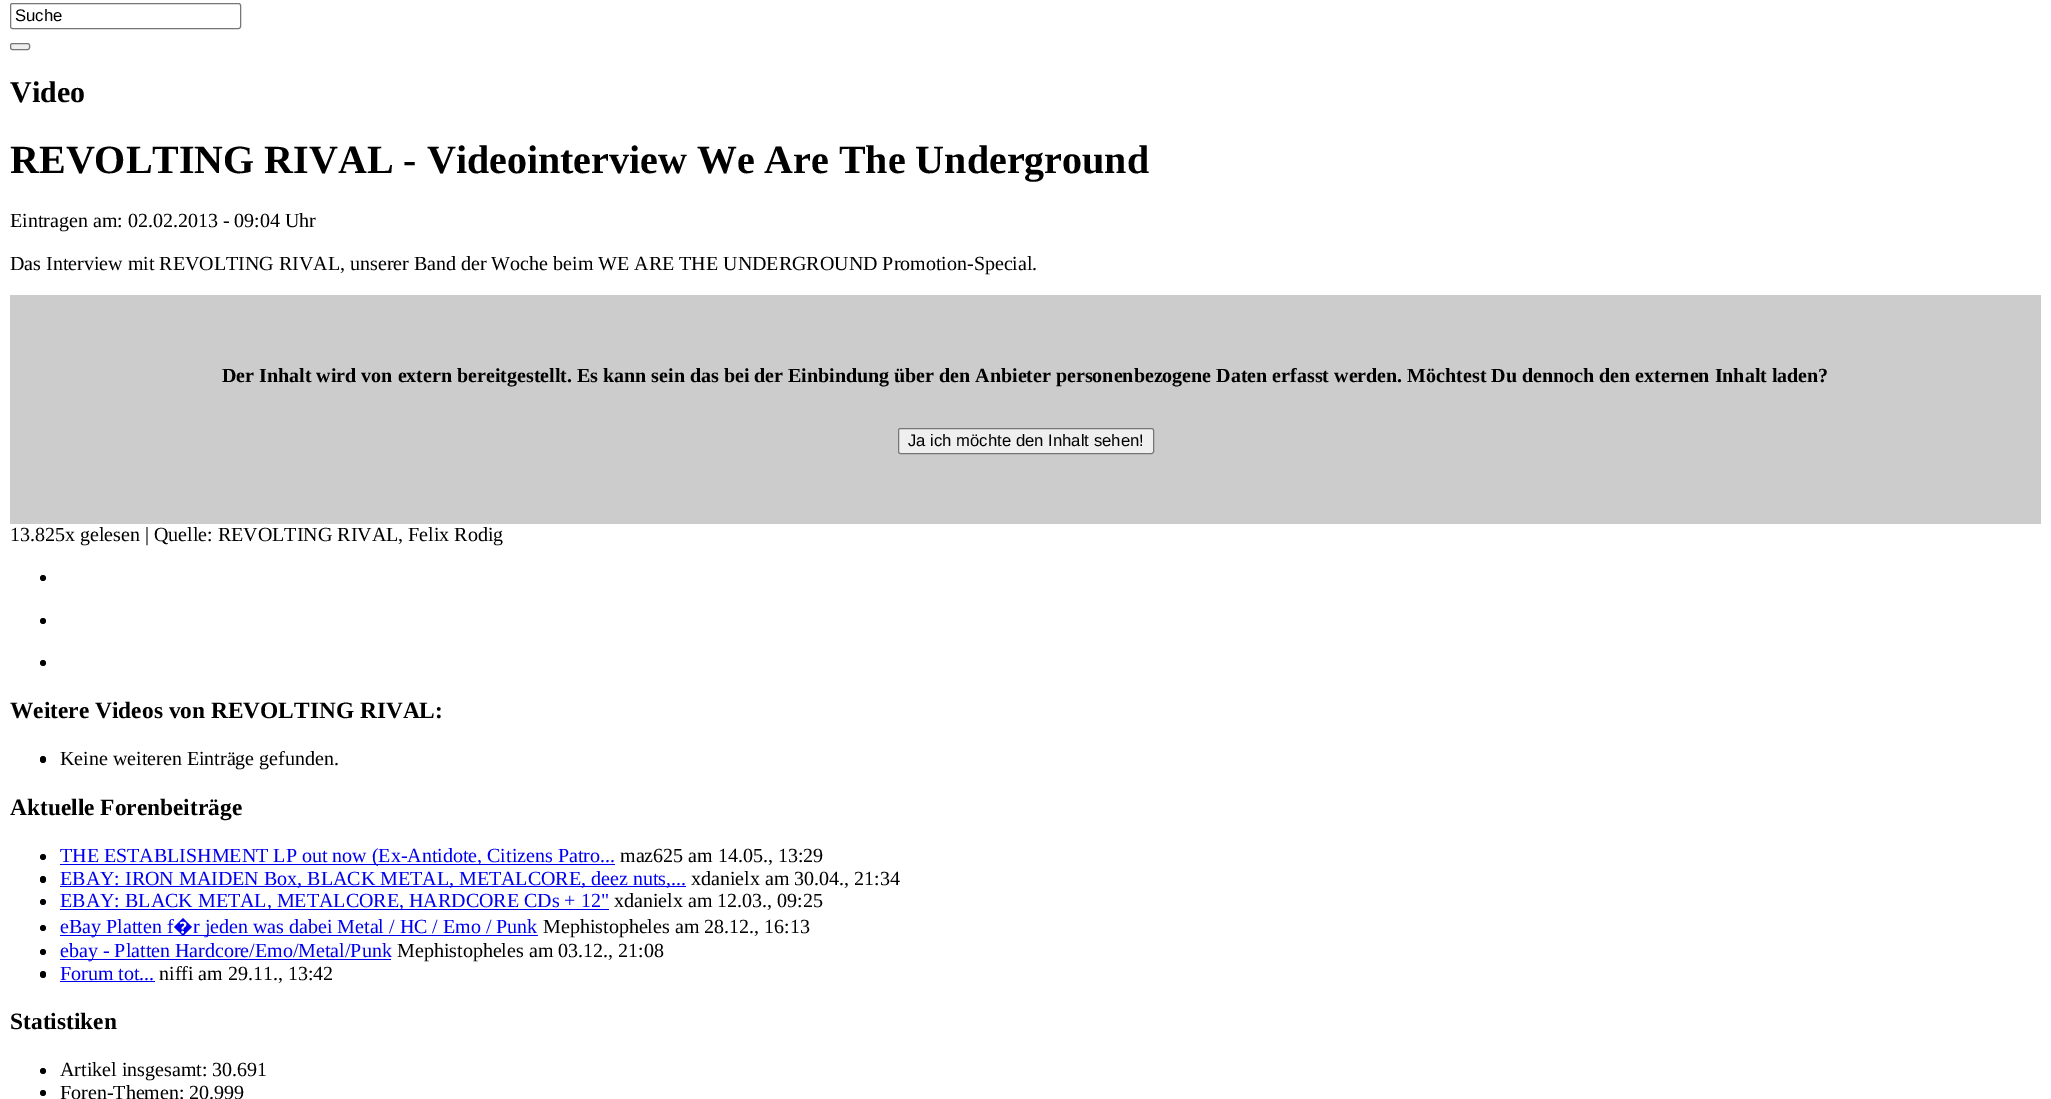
%!PS-Adobe-3.0
%%BoundingBox: 0 0 2051 1099
%%LanguageLevel: 3
%%Pages: 1
%%EndComments
%%BeginProlog
/setink { 3 { 255 div 3 1 roll } repeat setrgbcolor } def
/usefont { [ exch dup neg 0 0 3 -1 roll 0 0 ] selectfont } def
/drawtext { setink usefont moveto show } def
/fillbox { setink rectfill } def
/disc { newpath 0 360 arc closepath } def
/rrect { 5 dict begin { /r /h /w /y /x } { exch def } forall
  x r add y moveto x w add y 2 copy h add r arct x w add y h add x 1 index r arct
  x y h add x y r arct x y 2 copy exch w add exch r arct closepath end } def
%%EndProlog
%%BeginSetup
<< /PageSize [2051 1099] >> setpagedevice
%%EndSetup
%%Page: 1 1
0 1099 translate 1 -1 scale
4 setmiterlimit
0 0 2051 1099 255 255 255 fillbox
118 118 118 setink
10.5 3.5 230 25 2 rrect stroke
(Suche) 15 21 /LiberationSans-Regular 16.7 0 0 0 drawtext
239 239 239 setink
10.5 43.5 19 6 2 rrect gsave fill grestore
118 118 118 setink
stroke
(Video) 10 102 /LiberationSerif-Bold 30 0 0 0 drawtext
(REVOLTING RIVAL - Videointerview We Are The Underground) 10 173 /LiberationSerif-Bold 40 0 0 0 drawtext
(Eintragen am: 02.02.2013 - 09:04 Uhr) 10 227 /LiberationSerif-Regular 20 0 0 0 drawtext
(Das Interview mit REVOLTING RIVAL, unserer Band der Woche beim WE ARE THE UNDERGROUND Promotion-Special.) 10 270 /LiberationSerif-Regular 20 0 0 0 drawtext
10 295 2031 229 204 204 204 fillbox
(Der Inhalt wird von extern bereitgestellt. Es kann sein das bei der Einbindung über den Anbieter personenbezogene Daten erfasst werden. Möchtest Du dennoch den externen Inhalt laden?) 222 382 /LiberationSerif-Bold 20 0 0 0 drawtext
239 239 239 setink
898.5 428.5 255 25 2 rrect gsave fill grestore
118 118 118 setink
stroke
(Ja ich möchte den Inhalt sehen!) 908 446 /LiberationSans-Regular 16.7 0 0 0 drawtext
(13.825x gelesen | Quelle: REVOLTING RIVAL, Felix Rodig) 10 541 /LiberationSerif-Regular 20 0 0 0 drawtext
43 578 3 disc fill
43 621 3 disc fill
43 663 3 disc fill
(Weitere Videos von REVOLTING RIVAL:) 10 718 /LiberationSerif-Bold 23.4 0 0 0 drawtext
40 756 6 7 3 rrect fill
(Keine weiteren Einträge gefunden.) 60 765 /LiberationSerif-Regular 20 0 0 0 drawtext
(Aktuelle Forenbeiträge) 10 815 /LiberationSerif-Bold 23.4 0 0 0 drawtext
43 857 3 disc fill
60 864 555 1 0 0 238 fillbox
(THE ESTABLISHMENT LP out now \(Ex-Antidote, Citizens Patro...) 60 862 /LiberationSerif-Regular 20 0 0 238 drawtext
(maz625 am 14.05., 13:29) 620 862 /LiberationSerif-Regular 20 0 0 0 drawtext
40 876 6 7 3 rrect fill
60 886 626 1 0 0 238 fillbox
(EBAY: IRON MAIDEN Box, BLACK METAL, METALCORE, deez nuts,...) 60 885 /LiberationSerif-Regular 20 0 0 238 drawtext
(xdanielx am 30.04., 21:34) 691 885 /LiberationSerif-Regular 20 0 0 0 drawtext
43 902 3 disc fill
60 909 549 1 0 0 238 fillbox
(EBAY: BLACK METAL, METALCORE, HARDCORE CDs + 12") 60 907 /LiberationSerif-Regular 20 0 0 238 drawtext
(xdanielx am 12.03., 09:25) 614 907 /LiberationSerif-Regular 20 0 0 0 drawtext
43 928 3 disc fill
60 935 478 1 0 0 238 fillbox
(eBay Platten f) 60 933 /LiberationSerif-Regular 20 0 0 238 drawtext
(�) 173 933 /NotoSans-Regular 20 0 0 238 drawtext
(r jeden was dabei Metal / HC / Emo / Punk) 193 933 /LiberationSerif-Regular 20 0 0 238 drawtext
(Mephistopheles am 28.12., 16:13) 543 933 /LiberationSerif-Regular 20 0 0 0 drawtext
43 952 3 disc fill
60 959 331 1 0 0 238 fillbox
(ebay - Platten Hardcore/Emo/Metal/Punk) 60 957 /LiberationSerif-Regular 20 0 0 238 drawtext
(Mephistopheles am 03.12., 21:08) 397 957 /LiberationSerif-Regular 20 0 0 0 drawtext
40 971 6 7 3 rrect fill
(Forum tot...) 60 980 /LiberationSerif-Regular 20 0 0 238 drawtext
60 981 95 1 0 0 238 fillbox
(niffi am 29.11., 13:42) 159 980 /LiberationSerif-Regular 20 0 0 0 drawtext
(Statistiken) 10 1029 /LiberationSerif-Bold 23.4 0 0 0 drawtext
43 1071 3 disc fill
(Artikel insgesamt: 30.691) 60 1076 /LiberationSerif-Regular 20 0 0 0 drawtext
43 1093 3 disc fill
(Foren-Themen: 20.999) 60 1099 /LiberationSerif-Regular 20 0 0 0 drawtext
showpage
%%EOF
